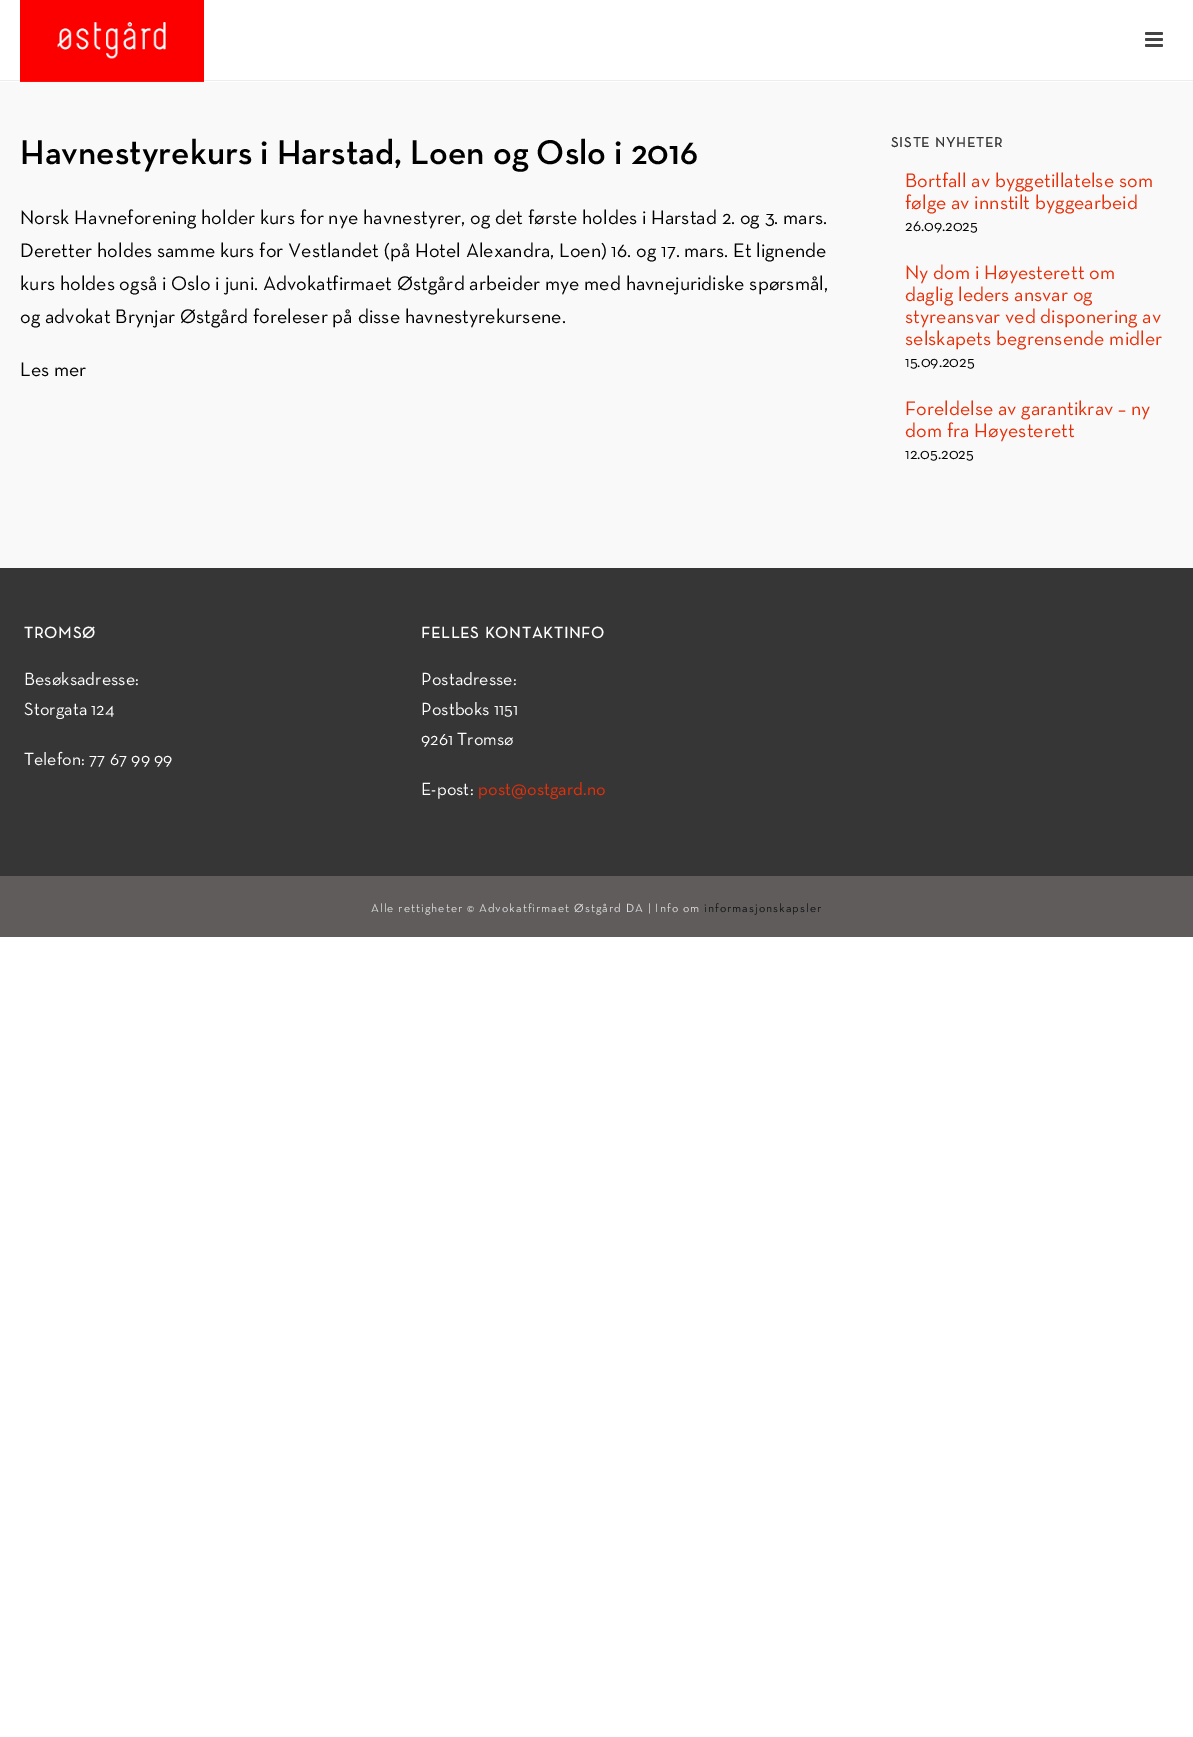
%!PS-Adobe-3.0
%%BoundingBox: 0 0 1193 1737
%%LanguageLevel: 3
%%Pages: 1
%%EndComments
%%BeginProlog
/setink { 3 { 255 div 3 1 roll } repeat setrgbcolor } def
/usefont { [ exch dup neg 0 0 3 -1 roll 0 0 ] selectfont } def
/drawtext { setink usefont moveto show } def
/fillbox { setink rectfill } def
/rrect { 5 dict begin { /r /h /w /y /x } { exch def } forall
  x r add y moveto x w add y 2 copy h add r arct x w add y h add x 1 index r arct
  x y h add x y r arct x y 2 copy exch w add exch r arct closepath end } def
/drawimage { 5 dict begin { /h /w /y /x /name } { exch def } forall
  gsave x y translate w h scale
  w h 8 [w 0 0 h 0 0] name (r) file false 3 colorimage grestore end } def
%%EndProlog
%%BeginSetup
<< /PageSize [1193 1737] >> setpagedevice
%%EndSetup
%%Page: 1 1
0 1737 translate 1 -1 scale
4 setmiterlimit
0 0 1193 1737 255 255 255 fillbox
0 80 1193 1 237 237 237 fillbox
(assets/img1.rgb) 20 0 184 82 drawimage
68 68 68 setink
1145 32 18 3 1.5 rrect fill
1145 38 18 3 1.5 rrect fill
1145 44 18 3 1.5 rrect fill
0 82 1193 486 249 249 249 fillbox
(Havnestyrekurs i Harstad, Loen og Oslo i 2016) 20 164 /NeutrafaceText-SemiBold 35 0 0 0 drawtext
(Norsk Havneforening holder kurs for nye havnestyrer, og det første holdes i Harstad 2. og 3. mars.) 20 224 /NeutrafaceText-Regular 20 0 0 0 drawtext
(Deretter holdes samme kurs for Vestlandet \(på Hotel Alexandra, Loen\) 16. og 17. mars. Et lignende) 20 257 /NeutrafaceText-Regular 20 0 0 0 drawtext
(kurs holdes også i Oslo i juni. Advokatfirmaet Østgård arbeider mye med havnejuridiske spørsmål,) 20 290 /NeutrafaceText-Regular 20 0 0 0 drawtext
(og advokat Brynjar Østgård foreleser på disse havnestyrekursene.) 20 323 /NeutrafaceText-Regular 20 0 0 0 drawtext
(Les mer) 20 376 /NeutrafaceText-Regular 20 0 0 0 drawtext
/NeutrafaceText-Bold 14 usefont
51 51 51 setink
891 147 moveto 1 0 (SISTE NYHETER) ashow
(Bortfall av byggetillatelse som) 905 187 /NeutrafaceText-Regular 20 229 48 9 drawtext
(følge av innstilt byggearbeid) 905 209 /NeutrafaceText-Regular 20 229 48 9 drawtext
(26.09.2025) 905 231 /NeutrafaceText-Regular 16 0 0 0 drawtext
(Ny dom i Høyesterett om) 905 279 /NeutrafaceText-Regular 20 229 48 9 drawtext
(daglig leders ansvar og) 905 301 /NeutrafaceText-Regular 20 229 48 9 drawtext
(styreansvar ved disponering av) 905 323 /NeutrafaceText-Regular 20 229 48 9 drawtext
(selskapets begrensende midler) 905 345 /NeutrafaceText-Regular 20 229 48 9 drawtext
(15.09.2025) 905 367 /NeutrafaceText-Regular 16 0 0 0 drawtext
(Foreldelse av garantikrav – ny) 905 415 /NeutrafaceText-Regular 20 229 48 9 drawtext
(dom fra Høyesterett) 905 437 /NeutrafaceText-Regular 20 229 48 9 drawtext
(12.05.2025) 905 459 /NeutrafaceText-Regular 16 0 0 0 drawtext
0 568 1193 308 55 54 54 fillbox
/NeutrafaceText-Bold 16 usefont
255 255 255 setink
24 638 moveto 1 0 (TROMSØ) ashow
(Besøksadresse:) 24 685 /NeutrafaceText-Regular 18 255 255 255 drawtext
(Storgata 124) 24 715 /NeutrafaceText-Regular 18 255 255 255 drawtext
(Telefon: 77 67 99 99) 24 765 /NeutrafaceText-Regular 18 255 255 255 drawtext
/NeutrafaceText-Bold 16 usefont
421 638 moveto 1 0 (FELLES KONTAKTINFO) ashow
(Postadresse:) 421 685 /NeutrafaceText-Regular 18 255 255 255 drawtext
(Postboks 1151) 421 715 /NeutrafaceText-Regular 18 255 255 255 drawtext
(9261 Tromsø) 421 745 /NeutrafaceText-Regular 18 255 255 255 drawtext
(E-post:) 421 795 /NeutrafaceText-Regular 18 255 255 255 drawtext
(post@ostgard.no) 478 795 /NeutrafaceText-Regular 18 229 48 9 drawtext
0 876 1193 61 96 92 92 fillbox
/NeutrafaceText-Regular 12 usefont
223 222 222 setink
371 912 moveto 1 0 (Alle rettigheter © Advokatfirmaet Østgård DA | Info om) ashow
19 18 18 setink
704 912 moveto 1 0 (informasjonskapsler) ashow
showpage
%%EOF
